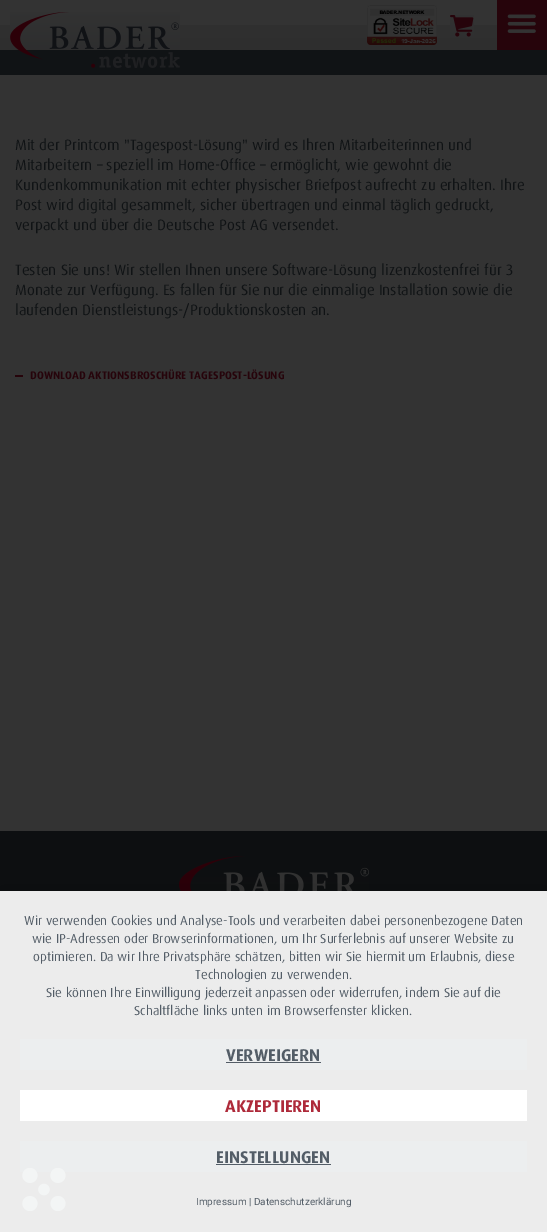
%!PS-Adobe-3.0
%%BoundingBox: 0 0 547 1232
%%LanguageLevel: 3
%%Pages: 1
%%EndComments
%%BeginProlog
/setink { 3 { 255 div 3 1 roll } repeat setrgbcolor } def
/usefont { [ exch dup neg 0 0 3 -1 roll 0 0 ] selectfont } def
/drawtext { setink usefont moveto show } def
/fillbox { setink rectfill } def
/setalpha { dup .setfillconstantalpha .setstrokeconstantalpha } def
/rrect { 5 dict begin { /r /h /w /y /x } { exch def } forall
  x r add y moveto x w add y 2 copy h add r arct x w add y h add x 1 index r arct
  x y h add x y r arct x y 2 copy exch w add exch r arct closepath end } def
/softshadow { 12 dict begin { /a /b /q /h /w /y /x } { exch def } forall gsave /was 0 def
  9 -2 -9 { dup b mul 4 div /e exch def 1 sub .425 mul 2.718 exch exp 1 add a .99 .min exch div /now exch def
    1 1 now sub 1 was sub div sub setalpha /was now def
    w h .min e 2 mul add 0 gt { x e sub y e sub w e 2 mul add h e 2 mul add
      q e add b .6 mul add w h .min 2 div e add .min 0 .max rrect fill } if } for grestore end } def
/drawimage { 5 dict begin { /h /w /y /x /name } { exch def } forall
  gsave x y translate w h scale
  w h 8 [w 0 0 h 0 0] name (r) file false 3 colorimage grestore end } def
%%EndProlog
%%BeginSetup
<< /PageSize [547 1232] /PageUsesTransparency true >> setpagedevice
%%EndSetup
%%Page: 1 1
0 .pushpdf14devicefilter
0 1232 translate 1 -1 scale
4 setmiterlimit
0 0 547 1232 51 51 51 fillbox
gsave 0 25 moveto 497 25 lineto 497 50 lineto 0 50 lineto closepath clip newpath
<< /ShadingType 2 /ColorSpace /DeviceRGB /Coords [274 0 274 50] /Extend [true true] /Function << /FunctionType 2 /Domain [0 1] /C0 [0.2 0.2 0.2] /C1 [0.18 0.18 0.18] /N 1 >> >> shfill grestore
0 50 547 25 16 19 21 fillbox
(assets/img1.rgb) 10 12 170 56 drawimage
(assets/img2.rgb) 367 5 70 40 drawimage
(assets/img3.rgb) 450 15 24 22 drawimage
497 0 50 50 38 4 11 fillbox
(assets/img4.rgb) 507 14 29 19 drawimage
(Mit der Printcom "Tagespost-Lösung" wird es Ihren Mitarbeiterinnen und) 15 150 /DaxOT-Regular 15 16 19 21 drawtext
(Mitarbeitern – speziell im Home-Office – ermöglicht, wie gewohnt die) 15 170 /DaxOT-Regular 15 16 19 21 drawtext
(Kundenkommunikation mit echter physischer Briefpost aufrecht zu erhalten. Ihre) 15 190 /DaxOT-Regular 15 16 19 21 drawtext
(Post wird digital gesammelt, sicher übertragen und einmal täglich gedruckt,) 15 210 /DaxOT-Regular 15 16 19 21 drawtext
(verpackt und über die Deutsche Post AG versendet.) 15 230 /DaxOT-Regular 15 16 19 21 drawtext
(Testen Sie uns! Wir stellen Ihnen unsere Software-Lösung lizenzkostenfrei für 3) 15 275 /DaxOT-Regular 15 16 19 21 drawtext
(Monate zur Verfügung. Es fallen für Sie nur die einmalige Installation sowie die) 15 295 /DaxOT-Regular 15 16 19 21 drawtext
(laufenden Dienstleistungs-/Produktionskosten an.) 15 315 /DaxOT-Regular 15 16 19 21 drawtext
15 375 8 2 38 4 11 fillbox
(DOWNLOAD AKTIONSBROSCHÜRE TAGESPOST-LÖSUNG) 30 379 /DaxOT-Bold 11 38 4 11 drawtext
gsave 0 831 moveto 547 831 lineto 547 891 lineto 0 891 lineto closepath clip newpath
<< /ShadingType 2 /ColorSpace /DeviceRGB /Coords [274 1167 274 781] /Extend [true true] /Function << /FunctionType 2 /Domain [0 1] /C0 [0.063 0.075 0.082] /C1 [0.051 0.055 0.063] /N 1 >> >> shfill grestore
(assets/img5.rgb) 179 856 190 35 drawimage
0 0 0 setink
0 897 547 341 0 18 0.3 softshadow
0 891 547 341 236 236 236 fillbox
(Wir verwenden Cookies und Analyse-Tools und verarbeiten dabei personenbezogene Daten) 24 925 /DaxOT-Regular 13 83 93 103 drawtext
(wie IP-Adressen oder Browserinformationen, um Ihr Surferlebnis auf unserer Website zu) 32 943 /DaxOT-Regular 13 83 93 103 drawtext
(optimieren. Da wir Ihre Privatsphäre schätzen, bitten wir Sie hiermit um Erlaubnis, diese) 33 961 /DaxOT-Regular 13 83 93 103 drawtext
(Technologien zu verwenden.) 195 979 /DaxOT-Regular 13 83 93 103 drawtext
(Sie können Ihre Einwilligung jederzeit anpassen oder widerrufen, indem Sie auf die) 46 997 /DaxOT-Regular 13 83 93 103 drawtext
(Schaltfläche links unten im Browserfenster klicken.) 134 1015 /DaxOT-Regular 13 83 93 103 drawtext
20 1039 507 31 236 238 239 fillbox
(VERWEIGERN) 226 1061 /DaxOT-Bold 17 83 93 103 drawtext
226 1062 95 1 83 93 103 fillbox
20 1090 507 31 255 255 255 fillbox
(AKZEPTIEREN) 225 1112 /DaxOT-Bold 17 174 42 58 drawtext
20 1141 507 31 236 238 239 fillbox
(EINSTELLUNGEN) 216 1163 /DaxOT-Bold 17 83 93 103 drawtext
216 1164 115 1 83 93 103 fillbox
(Impressum | Datenschutzerklärung) 196 1205 /Roboto-Regular 10 83 93 103 drawtext
(assets/img6.rgb) 22 1168 44 43 drawimage
.poppdf14devicefilter showpage
%%EOF
